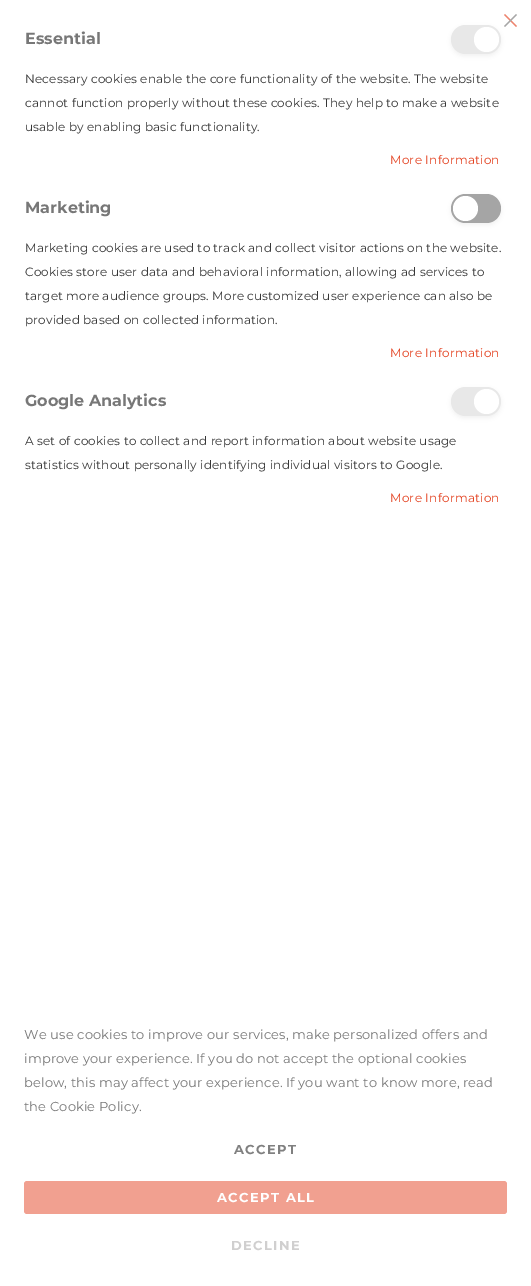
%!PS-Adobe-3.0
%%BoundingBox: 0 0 531 1286
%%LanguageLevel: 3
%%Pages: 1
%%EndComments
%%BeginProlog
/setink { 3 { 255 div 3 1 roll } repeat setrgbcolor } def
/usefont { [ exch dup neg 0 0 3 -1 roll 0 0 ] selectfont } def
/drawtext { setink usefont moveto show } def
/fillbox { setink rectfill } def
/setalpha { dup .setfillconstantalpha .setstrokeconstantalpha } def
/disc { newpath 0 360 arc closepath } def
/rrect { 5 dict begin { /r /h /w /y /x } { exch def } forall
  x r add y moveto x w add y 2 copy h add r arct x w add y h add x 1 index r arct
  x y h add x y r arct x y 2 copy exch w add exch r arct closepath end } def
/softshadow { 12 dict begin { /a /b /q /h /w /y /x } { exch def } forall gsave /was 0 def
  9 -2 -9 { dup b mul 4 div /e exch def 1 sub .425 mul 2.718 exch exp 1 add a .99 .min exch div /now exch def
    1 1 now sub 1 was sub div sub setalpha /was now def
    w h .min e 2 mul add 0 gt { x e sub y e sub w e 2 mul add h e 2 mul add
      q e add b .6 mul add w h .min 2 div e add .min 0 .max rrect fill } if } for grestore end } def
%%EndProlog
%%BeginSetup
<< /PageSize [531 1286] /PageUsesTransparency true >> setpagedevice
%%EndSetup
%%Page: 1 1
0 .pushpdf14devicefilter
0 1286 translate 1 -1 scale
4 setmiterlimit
0 0 531 1286 255 255 255 fillbox
0 0 0 setink
451 27 50 29 14.5 2.5 0.05 softshadow
237 132 110 setink
505 14 moveto 517 26 lineto 516 27 lineto 504 15 lineto closepath fill
167 167 167 setink
516 14 moveto 517 15 lineto 505 27 lineto 504 26 lineto closepath fill
(Essential) 25 44 /Montserrat-Bold 16 119 119 119 drawtext
232 232 232 setink
451 25 50 29 14.5 rrect fill
255 255 255 setink
486.5 39.5 12.5 disc fill
/Montserrat-Regular 12 usefont
54 54 54 setink
25 83 moveto 0.15 0 (Necessary cookies enable the core functionality of the website. The website) ashow
25 107 moveto 0.15 0 (cannot function properly without these cookies. They help to make a website) ashow
25 131 moveto 0.15 0 (usable by enabling basic functionality.) ashow
227 65 32 setink
390 164 moveto 0.25 0 (More Information) ashow
(Marketing) 25 213 /Montserrat-Bold 16 119 119 119 drawtext
0 0 0 setink
451 196 50 29 14.5 2.5 0.05 softshadow
165 165 165 setink
451 194 50 29 14.5 rrect fill
255 255 255 setink
465.5 208.5 12.5 disc fill
/Montserrat-Regular 12 usefont
54 54 54 setink
25 252 moveto 0.15 0 (Marketing cookies are used to track and collect visitor actions on the website.) ashow
25 276 moveto 0.15 0 (Cookies store user data and behavioral information, allowing ad services to) ashow
25 300 moveto 0.15 0 (target more audience groups. More customized user experience can also be) ashow
25 324 moveto 0.15 0 (provided based on collected information.) ashow
227 65 32 setink
390 357 moveto 0.25 0 (More Information) ashow
(Google Analytics) 25 406 /Montserrat-Bold 16 119 119 119 drawtext
0 0 0 setink
451 389 50 29 14.5 2.5 0.05 softshadow
232 232 232 setink
451 387 50 29 14.5 rrect fill
255 255 255 setink
486.5 401.5 12.5 disc fill
/Montserrat-Regular 12 usefont
54 54 54 setink
25 445 moveto 0.15 0 (A set of cookies to collect and report information about website usage) ashow
25 469 moveto 0.15 0 (statistics without personally identifying individual visitors to Google.) ashow
227 65 32 setink
390 502 moveto 0.25 0 (More Information) ashow
/Montserrat-Regular 13 usefont
119 119 119 setink
24 1039 moveto 0.15 0 (We use cookies to improve our services, make personalized offers and) ashow
24 1063 moveto 0.15 0 (improve your experience. If you do not accept the optional cookies) ashow
24 1087 moveto 0.15 0 (below, this may affect your experience. If you want to know more, read) ashow
24 1111 moveto 0.15 0 (the Cookie Policy.) ashow
/Montserrat-Bold 13 usefont
128 128 128 setink
234 1154 moveto 1.4 0 (ACCEPT) ashow
241 160 144 setink
24 1181 483 33 3 rrect fill
255 255 255 setink
217 1202 moveto 1.4 0 (ACCEPT ALL) ashow
208 207 207 setink
231 1250 moveto 1.4 0 (DECLINE) ashow
.poppdf14devicefilter showpage
%%EOF
